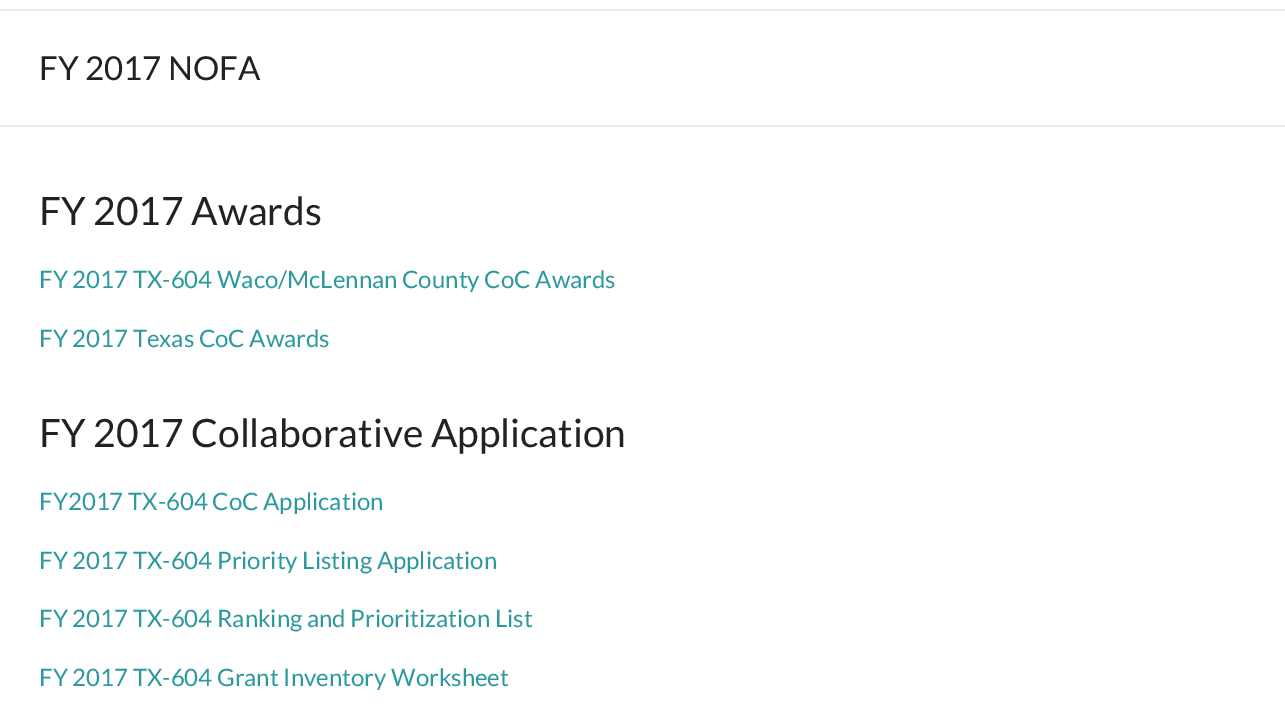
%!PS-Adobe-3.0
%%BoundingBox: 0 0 1285 720
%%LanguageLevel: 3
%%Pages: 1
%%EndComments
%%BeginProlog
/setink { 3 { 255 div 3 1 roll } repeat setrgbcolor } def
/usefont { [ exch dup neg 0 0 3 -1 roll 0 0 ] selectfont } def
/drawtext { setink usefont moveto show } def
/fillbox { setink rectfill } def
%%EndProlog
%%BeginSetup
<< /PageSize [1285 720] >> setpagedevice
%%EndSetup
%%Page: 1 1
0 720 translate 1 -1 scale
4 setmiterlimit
0 0 1285 720 255 255 255 fillbox
0 9 1285 2 234 234 234 fillbox
0 125 1285 2 234 234 234 fillbox
(FY 2017 NOFA) 39 80 /Lato-Regular 33 34 34 34 drawtext
(FY 2017 Awards) 39 225 /Lato-Regular 39 34 34 34 drawtext
(FY 2017 TX-604 Waco/McLennan County CoC Awards) 39 288 /Lato-Regular 24 43 153 158 drawtext
(FY 2017 Texas CoC Awards) 39 347 /Lato-Regular 24 43 153 158 drawtext
(FY 2017 Collaborative Application) 39 447 /Lato-Regular 39 34 34 34 drawtext
(FY2017 TX-604 CoC Application) 39 510 /Lato-Regular 24 43 153 158 drawtext
(FY 2017 TX-604 Priority Listing Application) 39 569 /Lato-Regular 24 43 153 158 drawtext
(FY 2017 TX-604 Ranking and Prioritization List) 39 627 /Lato-Regular 24 43 153 158 drawtext
(FY 2017 TX-604 Grant Inventory Worksheet) 39 686 /Lato-Regular 24 43 153 158 drawtext
showpage
%%EOF
